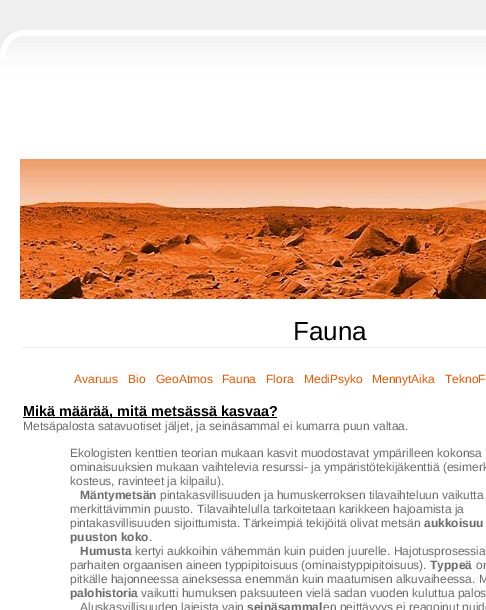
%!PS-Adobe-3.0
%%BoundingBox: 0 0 486 610
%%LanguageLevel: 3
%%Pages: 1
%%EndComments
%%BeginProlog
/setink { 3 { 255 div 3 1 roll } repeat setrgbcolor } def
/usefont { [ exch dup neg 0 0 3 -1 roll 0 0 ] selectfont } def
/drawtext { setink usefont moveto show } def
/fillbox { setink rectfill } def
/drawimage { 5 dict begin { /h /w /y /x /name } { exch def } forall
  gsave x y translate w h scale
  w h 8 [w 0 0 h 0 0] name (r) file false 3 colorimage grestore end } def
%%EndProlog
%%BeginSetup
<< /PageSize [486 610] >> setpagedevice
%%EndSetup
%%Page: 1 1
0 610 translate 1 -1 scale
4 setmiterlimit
0 0 486 610 239 239 239 fillbox
(assets/img1.rgb) 0 30 486 115 drawimage
(assets/img2.rgb) 0 30 20 29 drawimage
0 145 486 465 255 255 255 fillbox
(assets/img3.rgb) 20 159 466 140 drawimage
20 347 466 1 244 244 244 fillbox
(Fauna) 293 340 /LiberationSans-Regular 26 0 0 0 drawtext
(Avaruus) 74 383 /LiberationSans-Regular 12 236 86 0 drawtext
(Bio) 128 383 /LiberationSans-Regular 12 236 86 0 drawtext
(GeoAtmos) 156 383 /LiberationSans-Regular 12 236 86 0 drawtext
(Fauna) 222 383 /LiberationSans-Regular 12 236 86 0 drawtext
(Flora) 266 383 /LiberationSans-Regular 12 236 86 0 drawtext
(MediPsyko) 304 383 /LiberationSans-Regular 12 236 86 0 drawtext
(MennytAika) 372 383 /LiberationSans-Regular 12 236 86 0 drawtext
(TeknoF) 445 383 /LiberationSans-Regular 12 236 86 0 drawtext
23 417 254 1 0 0 0 fillbox
(Mikä määrää, mitä metsässä kasvaa?) 23 416 /LiberationSans-Bold 14.4 0 0 0 drawtext
(Metsäpalosta satavuotiset jäljet, ja seinäsammal ei kumarra puun valtaa.) 23 430 /LiberationSans-Regular 12 107 107 107 drawtext
(Ekologisten kenttien teorian mukaan kasvit muodostavat ympärilleen kokonsa) 70 457 /LiberationSans-Regular 12 107 107 107 drawtext
(ominaisuuksien mukaan vaihtelevia resurssi- ja ympäristötekijäkenttiä \(esimerk) 70 471 /LiberationSans-Regular 12 107 107 107 drawtext
(kosteus, ravinteet ja kilpailu\).) 70 485 /LiberationSans-Regular 12 107 107 107 drawtext
(Mäntymetsän) 80 499 /LiberationSans-Bold 12 107 107 107 drawtext
(pintakasvillisuuden ja humuskerroksen tilavaihteluun vaikutta) 160 499 /LiberationSans-Regular 12 107 107 107 drawtext
(merkittävimmin puusto. Tilavaihtelulla tarkoitetaan karikkeen hajoamista ja) 70 513 /LiberationSans-Regular 12 107 107 107 drawtext
(pintakasvillisuuden sijoittumista. Tärkeimpiä tekijöitä olivat metsän) 70 527 /LiberationSans-Regular 12 107 107 107 drawtext
(aukkoisuu) 424 527 /LiberationSans-Bold 12 107 107 107 drawtext
(puuston koko) 70 541 /LiberationSans-Bold 12 107 107 107 drawtext
(.) 149 541 /LiberationSans-Regular 12 107 107 107 drawtext
(Humusta) 80 555 /LiberationSans-Bold 12 107 107 107 drawtext
(kertyi aukkoihin vähemmän kuin puiden juurelle. Hajotusprosessia) 135 555 /LiberationSans-Regular 12 107 107 107 drawtext
(parhaiten orgaanisen aineen typpipitoisuus \(ominaistyppipitoisuus\).) 70 569 /LiberationSans-Regular 12 107 107 107 drawtext
(Typpeä) 430 569 /LiberationSans-Bold 12 107 107 107 drawtext
(on) 476 569 /LiberationSans-Regular 12 107 107 107 drawtext
(pitkälle hajonneessa aineksessa enemmän kuin maatumisen alkuvaiheessa. M) 70 583 /LiberationSans-Regular 12 107 107 107 drawtext
(palohistoria) 70 597 /LiberationSans-Bold 12 107 107 107 drawtext
(vaikutti humuksen paksuuteen vielä sadan vuoden kuluttua palos) 141 597 /LiberationSans-Regular 12 107 107 107 drawtext
(Aluskasvillisuuden lajeista vain) 80 611 /LiberationSans-Regular 12 107 107 107 drawtext
(seinäsammal) 247 611 /LiberationSans-Bold 12 107 107 107 drawtext
(en peittävyys ei reagoinut puide) 323 611 /LiberationSans-Regular 12 107 107 107 drawtext
showpage
%%EOF
